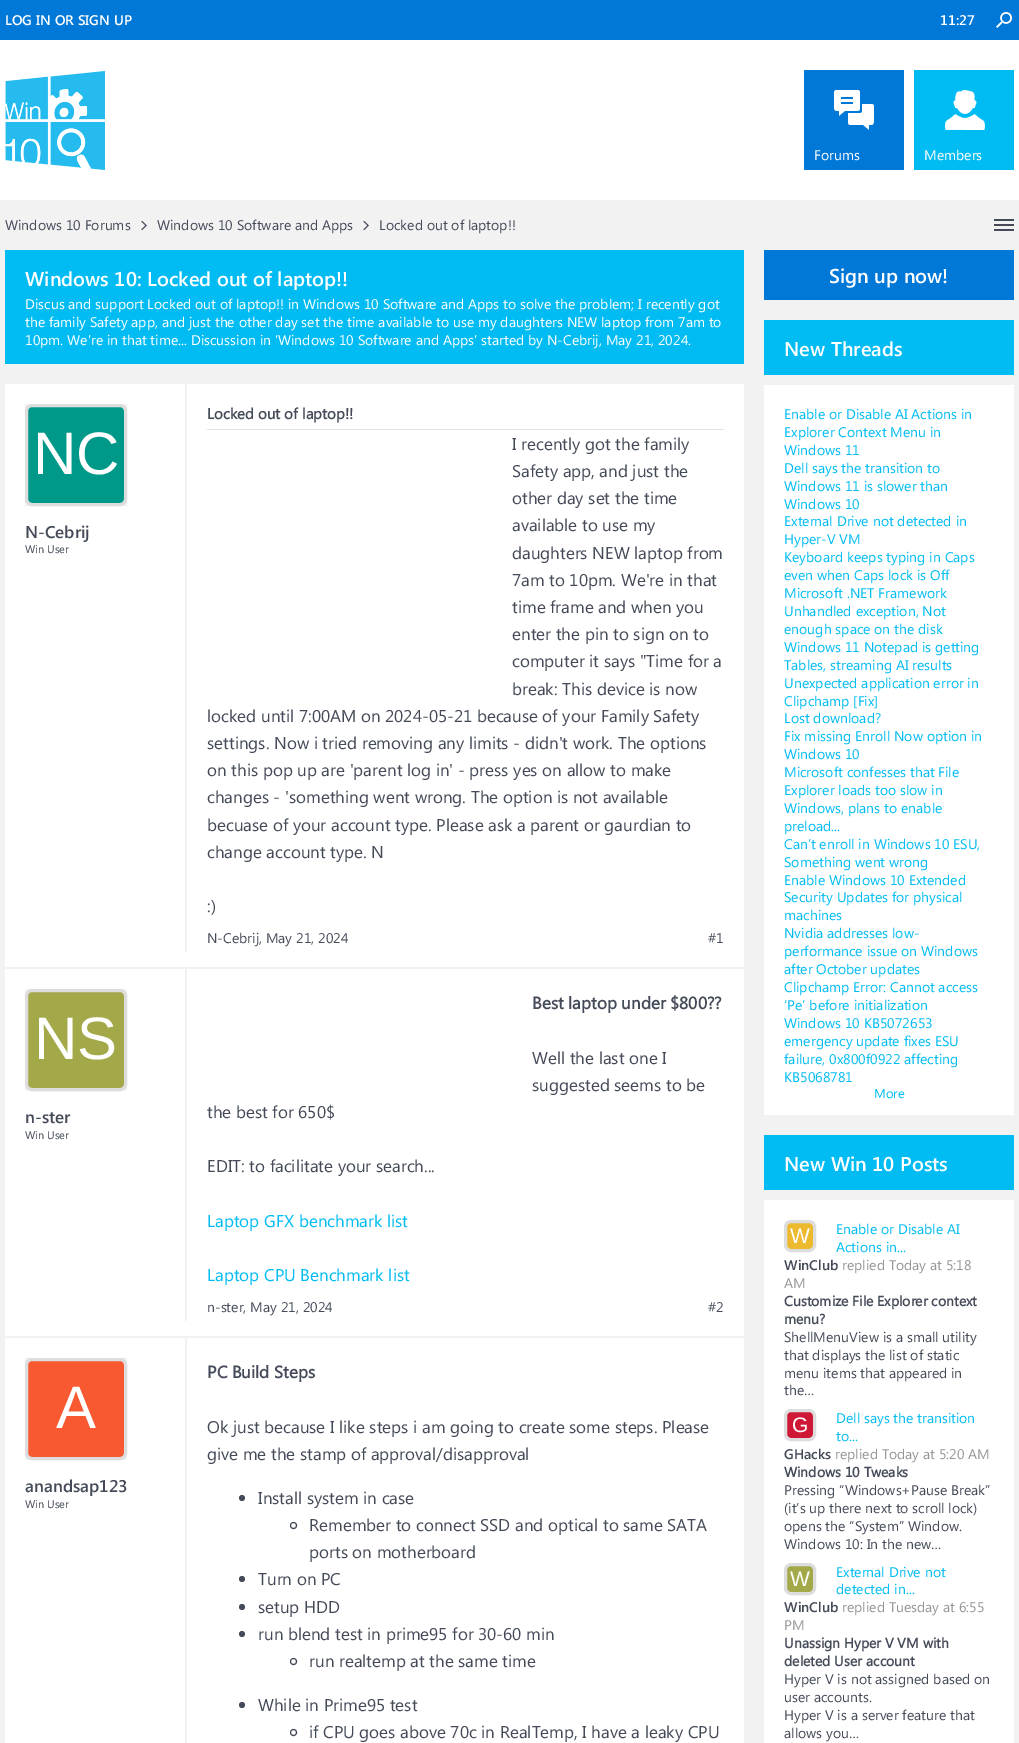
%!PS-Adobe-3.0
%%BoundingBox: 0 0 1019 1743
%%LanguageLevel: 3
%%Pages: 1
%%EndComments
%%BeginProlog
/setink { 3 { 255 div 3 1 roll } repeat setrgbcolor } def
/usefont { [ exch dup neg 0 0 3 -1 roll 0 0 ] selectfont } def
/drawtext { setink usefont moveto show } def
/fillbox { setink rectfill } def
/disc { newpath 0 360 arc closepath } def
/rrect { 5 dict begin { /r /h /w /y /x } { exch def } forall
  x r add y moveto x w add y 2 copy h add r arct x w add y h add x 1 index r arct
  x y h add x y r arct x y 2 copy exch w add exch r arct closepath end } def
/drawimage { 5 dict begin { /h /w /y /x /name } { exch def } forall
  gsave x y translate w h scale
  w h 8 [w 0 0 h 0 0] name (r) file false 3 colorimage grestore end } def
%%EndProlog
%%BeginSetup
<< /PageSize [1019 1743] >> setpagedevice
%%EndSetup
%%Page: 1 1
0 1743 translate 1 -1 scale
4 setmiterlimit
0 0 1019 1743 242 242 243 fillbox
0 0 1019 40 0 120 215 fillbox
(LOG IN OR SIGN UP) 5 25 /SegoeUI-SemiBold 14 255 255 255 drawtext
(11:27) 940 25 /SegoeUI-SemiBold 14 255 255 255 drawtext
(assets/img1.rgb) 996 12 16 16 drawimage
0 40 1019 160 255 255 255 fillbox
(assets/img2.rgb) 5 71 100 99 drawimage
804 70 100 100 0 120 215 fillbox
(assets/img3.rgb) 834 90 40 40 drawimage
(Forums) 814 160 /SegoeUI-Regular 14 255 255 255 drawtext
914 70 100 100 1 188 243 fillbox
(assets/img4.rgb) 945 90 40 40 drawimage
(Members) 924 160 /SegoeUI-Regular 14 255 255 255 drawtext
(Windows 10 Forums) 5 230 /SegoeUI-Regular 14 68 74 88 drawtext
(assets/img5.rgb) 141 221 6 9 drawimage
(Windows 10 Software and Apps) 157 230 /SegoeUI-Regular 14 68 74 88 drawtext
(assets/img5.rgb) 363 221 6 9 drawimage
(Locked out of laptop!!) 379 230 /SegoeUI-Regular 14 68 74 88 drawtext
994 219 20 2 68 74 88 fillbox
994 224 20 2 68 74 88 fillbox
994 229 20 2 68 74 88 fillbox
5 250 739 114 1 188 243 fillbox
(Windows 10:) 25 286 /SegoeUI-SemiBold 20 255 255 255 drawtext
gsave
25 265 699 25 rectclip
(Locked out of laptop!!) 147 286 /SegoeUI-SemiBold 20 255 255 255 drawtext
grestore
(Discus and support Locked out of laptop!! in Windows 10 Software and Apps to solve the problem; I recently got) 25 309 /SegoeUI-Regular 14 255 255 255 drawtext
(the family Safety app, and just the other day set the time available to use my daughters NEW laptop from 7am to) 25 327 /SegoeUI-Regular 14 255 255 255 drawtext
(10pm. We're in that time... Discussion in 'Windows 10 Software and Apps' started by N-Cebrij, May 21, 2024.) 25 345 /SegoeUI-Regular 14 255 255 255 drawtext
5 384 739 583 255 255 255 fillbox
25 404 102 102 242 242 243 fillbox
0 153 137 setink
26.5 405.5 99 99 5.5 rrect gsave fill grestore
221 221 221 setink
3 setlinewidth
stroke
(NC) 33 474 /LiberationSans-Regular 60 255 255 255 drawtext
(N-Cebrij) 25 538 /SegoeUI-SemiBold 17 68 74 88 drawtext
(Win User) 25 553 /SegoeUI-Regular 11 68 74 88 drawtext
185 384 2 568 242 242 243 fillbox
207 429 517 1 226 226 226 fillbox
(Locked out of laptop!!) 207 419 /SegoeUI-Bold 15 68 74 88 drawtext
(I recently got the family) 512 450 /SegoeUI-Regular 17 68 74 88 drawtext
(Safety app, and just the) 512 477 /SegoeUI-Regular 17 68 74 88 drawtext
(other day set the time) 512 504 /SegoeUI-Regular 17 68 74 88 drawtext
(available to use my) 512 531 /SegoeUI-Regular 17 68 74 88 drawtext
(daughters NEW laptop from) 512 559 /SegoeUI-Regular 17 68 74 88 drawtext
(7am to 10pm. We're in that) 512 586 /SegoeUI-Regular 17 68 74 88 drawtext
(time frame and when you) 512 613 /SegoeUI-Regular 17 68 74 88 drawtext
(enter the pin to sign on to) 512 640 /SegoeUI-Regular 17 68 74 88 drawtext
(computer it says "Time for a) 512 667 /SegoeUI-Regular 17 68 74 88 drawtext
(break: This device is now) 512 695 /SegoeUI-Regular 17 68 74 88 drawtext
(locked until 7:00AM on 2024-05-21 because of your Family Safety) 207 722 /SegoeUI-Regular 17 68 74 88 drawtext
(settings. Now i tried removing any limits - didn't work. The options) 207 749 /SegoeUI-Regular 17 68 74 88 drawtext
(on this pop up are 'parent log in' - press yes on allow to make) 207 776 /SegoeUI-Regular 17 68 74 88 drawtext
(changes - 'something went wrong. The option is not available) 207 803 /SegoeUI-Regular 17 68 74 88 drawtext
(becuase of your account type. Please ask a parent or gaurdian to) 207 831 /SegoeUI-Regular 17 68 74 88 drawtext
(change account type. N) 207 858 /SegoeUI-Regular 17 68 74 88 drawtext
(:\)) 207 912 /SegoeUI-Regular 17 68 74 88 drawtext
(N-Cebrij, May 21, 2024) 207 943 /SegoeUI-Regular 14 68 74 88 drawtext
(#1) 708 943 /SegoeUI-Regular 14 68 74 88 drawtext
5 969 739 367 255 255 255 fillbox
25 989 102 102 242 242 243 fillbox
163 169 72 setink
26.5 990.5 99 99 5.5 rrect gsave fill grestore
221 221 221 setink
stroke
(NS) 34 1059 /LiberationSans-Regular 60 255 255 255 drawtext
(n-ster) 25 1123 /SegoeUI-SemiBold 17 68 74 88 drawtext
(Win User) 25 1139 /SegoeUI-Regular 11 68 74 88 drawtext
185 969 2 352 242 242 243 fillbox
(Best laptop under $800??) 532 1009 /SegoeUI-Bold 17 68 74 88 drawtext
(Well the last one I) 532 1064 /SegoeUI-Regular 17 68 74 88 drawtext
(suggested seems to be) 532 1091 /SegoeUI-Regular 17 68 74 88 drawtext
(the best for 650$) 207 1118 /SegoeUI-Regular 17 68 74 88 drawtext
(EDIT: to facilitate your search...) 207 1172 /SegoeUI-Regular 17 68 74 88 drawtext
(Laptop GFX benchmark list) 207 1227 /SegoeUI-Regular 17 1 188 243 drawtext
(Laptop CPU Benchmark list) 207 1281 /SegoeUI-Regular 17 1 188 243 drawtext
(n-ster, May 21, 2024) 207 1312 /SegoeUI-Regular 14 68 74 88 drawtext
(#2) 708 1312 /SegoeUI-Regular 14 68 74 88 drawtext
5 1338 739 405 255 255 255 fillbox
25 1358 102 102 242 242 243 fillbox
248 89 49 setink
26.5 1359.5 99 99 5.5 rrect gsave fill grestore
221 221 221 setink
stroke
(A) 56 1428 /LiberationSans-Regular 60 255 255 255 drawtext
(anandsap123) 25 1492 /SegoeUI-SemiBold 17 68 74 88 drawtext
(Win User) 25 1508 /SegoeUI-Regular 11 68 74 88 drawtext
185 1338 2 405 242 242 243 fillbox
(PC Build Steps) 207 1378 /SegoeUI-Bold 17 68 74 88 drawtext
(Ok just because I like steps i am going to create some steps. Please) 207 1433 /SegoeUI-Regular 17 68 74 88 drawtext
(give me the stamp of approval/disapproval) 207 1460 /SegoeUI-Regular 17 68 74 88 drawtext
242 1498 3 disc fill
(Install system in case) 258 1504 /SegoeUI-Regular 17 68 74 88 drawtext
1 setlinewidth
293.5 1525.5 3 disc stroke
(Remember to connect SSD and optical to same SATA) 309 1531 /SegoeUI-Regular 17 68 74 88 drawtext
(ports on motherboard) 309 1558 /SegoeUI-Regular 17 68 74 88 drawtext
242 1579 3 disc fill
(Turn on PC) 258 1585 /SegoeUI-Regular 17 68 74 88 drawtext
242 1607 3 disc fill
(setup HDD) 258 1613 /SegoeUI-Regular 17 68 74 88 drawtext
242 1634 3 disc fill
(run blend test in prime95 for 30-60 min) 258 1640 /SegoeUI-Regular 17 68 74 88 drawtext
293.5 1661.5 3 disc stroke
(run realtemp at the same time) 309 1667 /SegoeUI-Regular 17 68 74 88 drawtext
242 1705 3 disc fill
(While in Prime95 test) 258 1711 /SegoeUI-Regular 17 68 74 88 drawtext
293.5 1732.5 3 disc stroke
(if CPU goes above 70c in RealTemp, I have a leaky CPU) 309 1738 /SegoeUI-Regular 17 68 74 88 drawtext
764 250 250 50 0 120 215 fillbox
(Sign up now!) 829 283 /SegoeUI-SemiBold 20 255 255 255 drawtext
764 320 250 55 1 188 243 fillbox
(New Threads) 784 356 /SegoeUI-SemiBold 20 255 255 255 drawtext
764 385 250 730 255 255 255 fillbox
(Enable or Disable AI Actions in) 784 419 /SegoeUI-Regular 14 1 188 243 drawtext
(Explorer Context Menu in) 784 437 /SegoeUI-Regular 14 1 188 243 drawtext
(Windows 11) 784 455 /SegoeUI-Regular 14 1 188 243 drawtext
(Dell says the transition to) 784 473 /SegoeUI-Regular 14 1 188 243 drawtext
(Windows 11 is slower than) 784 491 /SegoeUI-Regular 14 1 188 243 drawtext
(Windows 10) 784 509 /SegoeUI-Regular 14 1 188 243 drawtext
(External Drive not detected in) 784 526 /SegoeUI-Regular 14 1 188 243 drawtext
(Hyper-V VM) 784 544 /SegoeUI-Regular 14 1 188 243 drawtext
(Keyboard keeps typing in Caps) 784 562 /SegoeUI-Regular 14 1 188 243 drawtext
(even when Caps lock is Off) 784 580 /SegoeUI-Regular 14 1 188 243 drawtext
(Microsoft .NET Framework) 784 598 /SegoeUI-Regular 14 1 188 243 drawtext
(Unhandled exception, Not) 784 616 /SegoeUI-Regular 14 1 188 243 drawtext
(enough space on the disk) 784 634 /SegoeUI-Regular 14 1 188 243 drawtext
(Windows 11 Notepad is getting) 784 652 /SegoeUI-Regular 14 1 188 243 drawtext
(Tables, streaming AI results) 784 670 /SegoeUI-Regular 14 1 188 243 drawtext
(Unexpected application error in) 784 688 /SegoeUI-Regular 14 1 188 243 drawtext
(Clipchamp [Fix]) 784 706 /SegoeUI-Regular 14 1 188 243 drawtext
(Lost download?) 784 723 /SegoeUI-Regular 14 1 188 243 drawtext
(Fix missing Enroll Now option in) 784 741 /SegoeUI-Regular 14 1 188 243 drawtext
(Windows 10) 784 759 /SegoeUI-Regular 14 1 188 243 drawtext
(Microsoft confesses that File) 784 777 /SegoeUI-Regular 14 1 188 243 drawtext
(Explorer loads too slow in) 784 795 /SegoeUI-Regular 14 1 188 243 drawtext
(Windows, plans to enable) 784 813 /SegoeUI-Regular 14 1 188 243 drawtext
(preload...) 784 831 /SegoeUI-Regular 14 1 188 243 drawtext
(Can’t enroll in Windows 10 ESU,) 784 849 /SegoeUI-Regular 14 1 188 243 drawtext
(Something went wrong) 784 867 /SegoeUI-Regular 14 1 188 243 drawtext
(Enable Windows 10 Extended) 784 885 /SegoeUI-Regular 14 1 188 243 drawtext
(Security Updates for physical) 784 902 /SegoeUI-Regular 14 1 188 243 drawtext
(machines) 784 920 /SegoeUI-Regular 14 1 188 243 drawtext
(Nvidia addresses low-) 784 938 /SegoeUI-Regular 14 1 188 243 drawtext
(performance issue on Windows) 784 956 /SegoeUI-Regular 14 1 188 243 drawtext
(after October updates) 784 974 /SegoeUI-Regular 14 1 188 243 drawtext
(Clipchamp Error: Cannot access) 784 992 /SegoeUI-Regular 14 1 188 243 drawtext
(‘Pe’ before initialization) 784 1010 /SegoeUI-Regular 14 1 188 243 drawtext
(Windows 10 KB5072653) 784 1028 /SegoeUI-Regular 14 1 188 243 drawtext
(emergency update fixes ESU) 784 1046 /SegoeUI-Regular 14 1 188 243 drawtext
(failure, 0x800f0922 affecting) 784 1064 /SegoeUI-Regular 14 1 188 243 drawtext
(KB5068781) 784 1082 /SegoeUI-Regular 14 1 188 243 drawtext
(More) 874 1098 /SegoeUI-Regular 13 1 188 243 drawtext
764 1135 250 55 1 188 243 fillbox
(New Win 10 Posts) 784 1171 /SegoeUI-SemiBold 20 255 255 255 drawtext
764 1200 250 543 255 255 255 fillbox
237 185 46 setink
785.5 1221.5 29 29 5.5 rrect gsave fill grestore
221 221 221 setink
3 setlinewidth
stroke
(W) 790 1243 /LiberationSans-Regular 21 255 255 255 drawtext
(Enable or Disable AI) 836 1234 /SegoeUI-Regular 14 1 188 243 drawtext
(Actions in...) 836 1252 /SegoeUI-Regular 14 1 188 243 drawtext
(WinClub) 784 1270 /SegoeUI-SemiBold 14 68 74 88 drawtext
(replied Today at 5:18) 842 1270 /SegoeUI-Regular 14 150 150 150 drawtext
(AM) 784 1288 /SegoeUI-Regular 14 150 150 150 drawtext
(Customize File Explorer context) 784 1306 /SegoeUI-Bold 14 68 74 88 drawtext
(menu?) 784 1324 /SegoeUI-Bold 14 68 74 88 drawtext
(ShellMenuView is a small utility) 784 1342 /SegoeUI-Regular 14 68 74 88 drawtext
(that displays the list of static) 784 1360 /SegoeUI-Regular 14 68 74 88 drawtext
(menu items that appeared in) 784 1378 /SegoeUI-Regular 14 68 74 88 drawtext
(the…) 784 1395 /SegoeUI-Regular 14 68 74 88 drawtext
206 24 54 setink
785.5 1410.5 29 29 5.5 rrect gsave fill grestore
221 221 221 setink
stroke
(G) 792 1432 /LiberationSans-Regular 21 255 255 255 drawtext
(Dell says the transition) 836 1423 /SegoeUI-Regular 14 1 188 243 drawtext
(to...) 836 1441 /SegoeUI-Regular 14 1 188 243 drawtext
(GHacks) 784 1459 /SegoeUI-SemiBold 14 68 74 88 drawtext
(replied Today at 5:20 AM) 835 1459 /SegoeUI-Regular 14 150 150 150 drawtext
(Windows 10 Tweaks) 784 1477 /SegoeUI-Bold 14 68 74 88 drawtext
(Pressing “Windows+Pause Break”) 784 1495 /SegoeUI-Regular 14 68 74 88 drawtext
(\(it’s up there next to scroll lock\)) 784 1513 /SegoeUI-Regular 14 68 74 88 drawtext
(opens the “System” Window.) 784 1531 /SegoeUI-Regular 14 68 74 88 drawtext
(Windows 10: In the new…) 784 1549 /SegoeUI-Regular 14 68 74 88 drawtext
163 169 72 setink
785.5 1564.5 29 29 5.5 rrect gsave fill grestore
221 221 221 setink
stroke
(W) 790 1586 /LiberationSans-Regular 21 255 255 255 drawtext
(External Drive not) 836 1577 /SegoeUI-Regular 14 1 188 243 drawtext
(detected in...) 836 1594 /SegoeUI-Regular 14 1 188 243 drawtext
(WinClub) 784 1612 /SegoeUI-SemiBold 14 68 74 88 drawtext
(replied Tuesday at 6:55) 842 1612 /SegoeUI-Regular 14 150 150 150 drawtext
(PM) 784 1630 /SegoeUI-Regular 14 150 150 150 drawtext
(Unassign Hyper V VM with) 784 1648 /SegoeUI-Bold 14 68 74 88 drawtext
(deleted User account) 784 1666 /SegoeUI-Bold 14 68 74 88 drawtext
(Hyper V is not assigned based on) 784 1684 /SegoeUI-Regular 14 68 74 88 drawtext
(user accounts.) 784 1702 /SegoeUI-Regular 14 68 74 88 drawtext
(Hyper V is a server feature that) 784 1720 /SegoeUI-Regular 14 68 74 88 drawtext
(allows you…) 784 1738 /SegoeUI-Regular 14 68 74 88 drawtext
showpage
%%EOF
